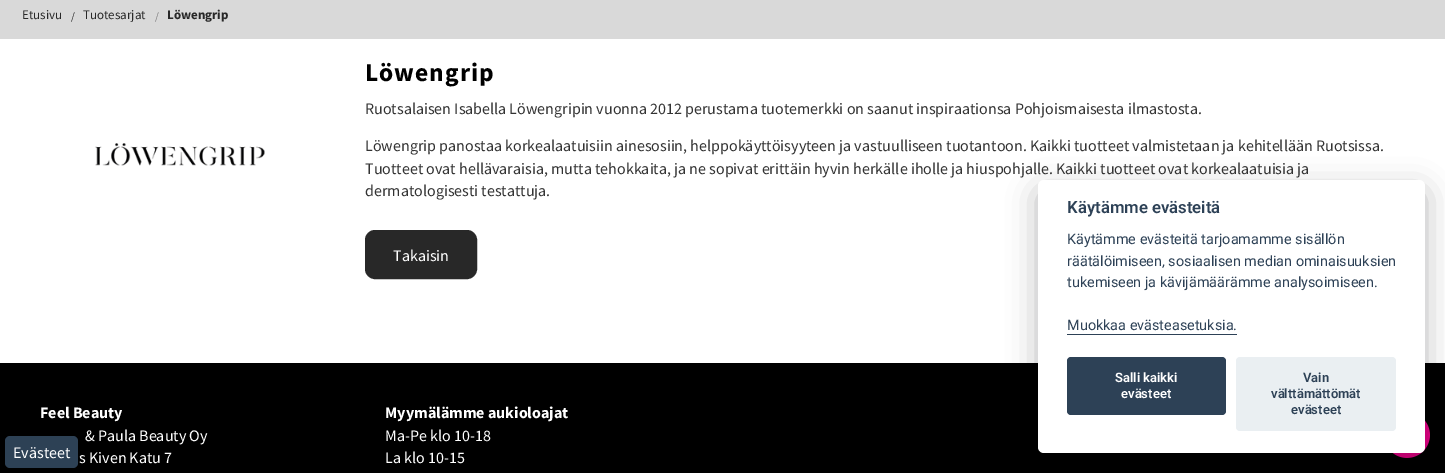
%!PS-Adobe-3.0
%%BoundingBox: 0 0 1445 473
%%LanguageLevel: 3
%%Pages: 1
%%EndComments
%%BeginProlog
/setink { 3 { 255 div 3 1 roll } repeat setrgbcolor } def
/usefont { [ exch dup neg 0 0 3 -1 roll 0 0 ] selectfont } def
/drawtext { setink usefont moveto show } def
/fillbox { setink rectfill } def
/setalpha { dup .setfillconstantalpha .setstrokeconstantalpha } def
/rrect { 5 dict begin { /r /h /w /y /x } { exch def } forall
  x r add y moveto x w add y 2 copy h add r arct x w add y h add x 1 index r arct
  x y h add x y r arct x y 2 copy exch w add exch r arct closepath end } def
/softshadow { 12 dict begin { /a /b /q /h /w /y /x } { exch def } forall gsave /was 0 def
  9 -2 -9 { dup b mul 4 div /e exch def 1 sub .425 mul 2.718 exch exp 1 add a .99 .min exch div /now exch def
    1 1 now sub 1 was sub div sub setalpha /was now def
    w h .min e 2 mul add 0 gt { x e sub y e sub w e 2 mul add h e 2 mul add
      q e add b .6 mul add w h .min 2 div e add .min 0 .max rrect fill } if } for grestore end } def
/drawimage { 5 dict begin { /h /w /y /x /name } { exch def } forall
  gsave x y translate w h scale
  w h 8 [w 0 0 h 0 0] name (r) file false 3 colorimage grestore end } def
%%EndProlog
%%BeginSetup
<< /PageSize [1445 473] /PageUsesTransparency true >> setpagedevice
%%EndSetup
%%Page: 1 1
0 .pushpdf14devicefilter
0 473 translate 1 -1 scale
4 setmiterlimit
0 0 1445 473 255 255 255 fillbox
0 0 1445 39 217 217 217 fillbox
(Etusivu) 22 19 /SourceSansPro-Regular 13 40 40 40 drawtext
(/) 71 20 /SourceSansPro-Regular 11 40 40 40 drawtext
(Tuotesarjat) 83 19 /SourceSansPro-Regular 13 40 40 40 drawtext
(/) 155 20 /SourceSansPro-Regular 11 125 124 125 drawtext
(Löwengrip) 167 19 /SourceSansPro-Bold 13 40 40 40 drawtext
(assets/img1.rgb) 95 143 170 23 drawimage
/SourceSansPro-Bold 25.5 usefont
0 0 0 setink
365 81 moveto 1 0 (Löwengrip) ashow
(Ruotsalaisen Isabella Löwengripin vuonna 2012 perustama tuotemerkki on saanut inspiraationsa Pohjoismaisesta ilmastosta.) 365 114 /SourceSansPro-Regular 16 51 51 51 drawtext
(Löwengrip panostaa korkealaatuisiin ainesosiin, helppokäyttöisyyteen ja vastuulliseen tuotantoon. Kaikki tuotteet valmistetaan ja kehitellään Ruotsissa.) 365 151 /SourceSansPro-Regular 16 51 51 51 drawtext
(Tuotteet ovat hellävaraisia, mutta tehokkaita, ja ne sopivat erittäin hyvin herkälle iholle ja hiuspohjalle. Kaikki tuotteet ovat korkealaatuisia ja) 365 174 /SourceSansPro-Regular 16 51 51 51 drawtext
(dermatologisesti testattuja.) 365 196 /SourceSansPro-Regular 16 51 51 51 drawtext
40 40 40 setink
367 232 108 45 8 rrect gsave fill grestore
4 setlinewidth
stroke
(Takaisin) 393 261 /SourceSansPro-Regular 16 255 255 255 drawtext
0 363 1445 110 0 0 0 fillbox
(assets/img2.rgb) 1392 420 38 38 drawimage
2 2 3 setink
1038 190 387 273 6 15 0.28 softshadow
255 255 255 setink
1038 180 387 273 6 rrect fill
(Käytämme evästeitä) 1067 213 /Roboto-SemiBold 16.75 45 65 86 drawtext
(Käytämme evästeitä tarjoamamme sisällön) 1067 244 /Roboto-Regular 14.4 45 65 86 drawtext
(räätälöimiseen, sosiaalisen median ominaisuuksien) 1067 266 /Roboto-Regular 14.4 45 65 86 drawtext
(tukemiseen ja kävijämäärämme analysoimiseen.) 1067 287 /Roboto-Regular 14.4 45 65 86 drawtext
(Muokkaa evästeasetuksia.) 1067 330 /Roboto-Regular 14.4 45 65 86 drawtext
1067 334 170 1 45 65 86 fillbox
1067 357 159 58 4 rrect fill
(Salli kaikki) 1115 382 /Roboto-SemiBold 13 255 255 255 drawtext
(evästeet) 1121 398 /Roboto-SemiBold 13 255 255 255 drawtext
234 239 242 setink
1236 357 160 74 4 rrect fill
(Vain) 1303 382 /Roboto-SemiBold 13 45 65 86 drawtext
(välttämättömät) 1271 398 /Roboto-SemiBold 13 45 65 86 drawtext
(evästeet) 1291 414 /Roboto-SemiBold 13 45 65 86 drawtext
(Feel Beauty) 40 418 /SourceSansPro-Bold 16 255 255 255 drawtext
(& Paula Beauty Oy) 85 441 /SourceSansPro-Regular 16 255 255 255 drawtext
(s Kiven Katu 7) 79 463 /SourceSansPro-Regular 16 255 255 255 drawtext
(Myymälämme aukioloajat) 385 418 /SourceSansPro-Bold 16 255 255 255 drawtext
(Ma-Pe klo 10-18) 385 441 /SourceSansPro-Regular 16 255 255 255 drawtext
(La klo 10-15) 385 463 /SourceSansPro-Regular 16 255 255 255 drawtext
45 65 85 setink
5 436 73 32 5 rrect fill
(Evästeet) 13 458 /SourceSansPro-Regular 16 255 255 255 drawtext
.poppdf14devicefilter showpage
%%EOF
